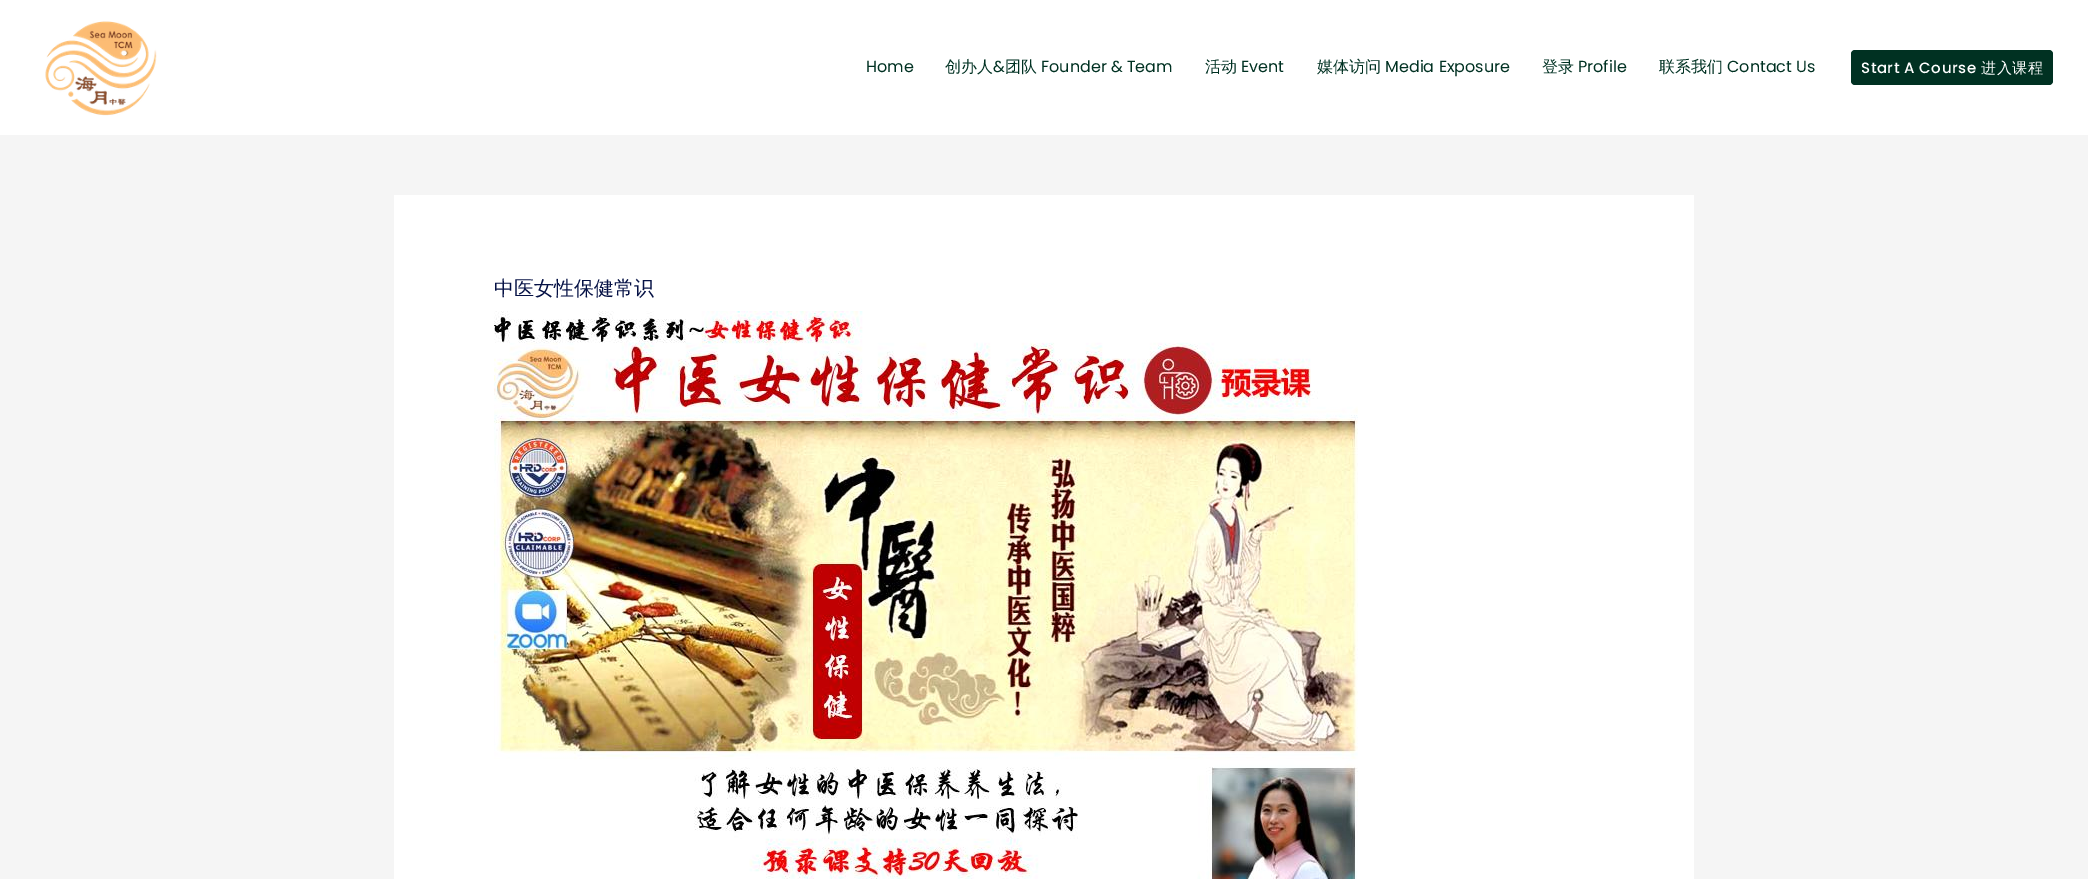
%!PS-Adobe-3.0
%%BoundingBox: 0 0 2088 879
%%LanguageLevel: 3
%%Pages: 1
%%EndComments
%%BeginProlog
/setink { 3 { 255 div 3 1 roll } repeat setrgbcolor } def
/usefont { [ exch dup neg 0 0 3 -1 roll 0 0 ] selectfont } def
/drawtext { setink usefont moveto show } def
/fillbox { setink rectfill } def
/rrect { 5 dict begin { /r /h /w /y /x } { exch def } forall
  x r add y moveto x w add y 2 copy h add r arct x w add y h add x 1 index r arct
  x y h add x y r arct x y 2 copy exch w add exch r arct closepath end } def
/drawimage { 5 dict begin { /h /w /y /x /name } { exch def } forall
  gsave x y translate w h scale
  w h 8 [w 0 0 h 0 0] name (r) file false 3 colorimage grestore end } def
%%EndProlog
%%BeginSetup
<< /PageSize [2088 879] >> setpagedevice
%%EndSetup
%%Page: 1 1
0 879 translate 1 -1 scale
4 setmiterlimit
0 0 2088 879 245 245 245 fillbox
0 0 2088 135 255 255 255 fillbox
(assets/img1.rgb) 45 21 112 95 drawimage
(Home) 866 72 /Poppins-Regular 16 0 49 34 drawtext
(创办人) 945 72 /WenQuanYiZenHei-Medium 16 0 49 34 drawtext
(&) 993 72 /Poppins-Regular 16 0 49 34 drawtext
(团队) 1005 72 /WenQuanYiZenHei-Medium 16 0 49 34 drawtext
(Founder & Team) 1041 72 /Poppins-Regular 16 0 49 34 drawtext
(活动) 1205 72 /WenQuanYiZenHei-Medium 16 0 49 34 drawtext
(Event) 1241 72 /Poppins-Regular 16 0 49 34 drawtext
(媒体访问) 1317 72 /WenQuanYiZenHei-Medium 16 0 49 34 drawtext
(Media Exposure) 1385 72 /Poppins-Regular 16 0 49 34 drawtext
(登录) 1542 72 /WenQuanYiZenHei-Medium 16 0 49 34 drawtext
(Profile) 1578 72 /Poppins-Regular 16 0 49 34 drawtext
(联系我们) 1659 72 /WenQuanYiZenHei-Medium 16 0 49 34 drawtext
(Contact Us) 1727 72 /Poppins-Regular 16 0 49 34 drawtext
1851 50 202 35 4 rrect fill
/Poppins-Medium 15 usefont
255 255 255 setink
1861 73 moveto 0.5 0 (Start A Course) ashow
/WenQuanYiZenHei-Medium 15 usefont
1981 73 moveto 0.5 0 (进入课程) ashow
394 195 1300 684 255 255 255 fillbox
(中医女性保健常识) 494 295 /WenQuanYiZenHei-Medium 20 5 17 69 drawtext
(assets/img2.rgb) 494 311 864 568 drawimage
showpage
%%EOF
